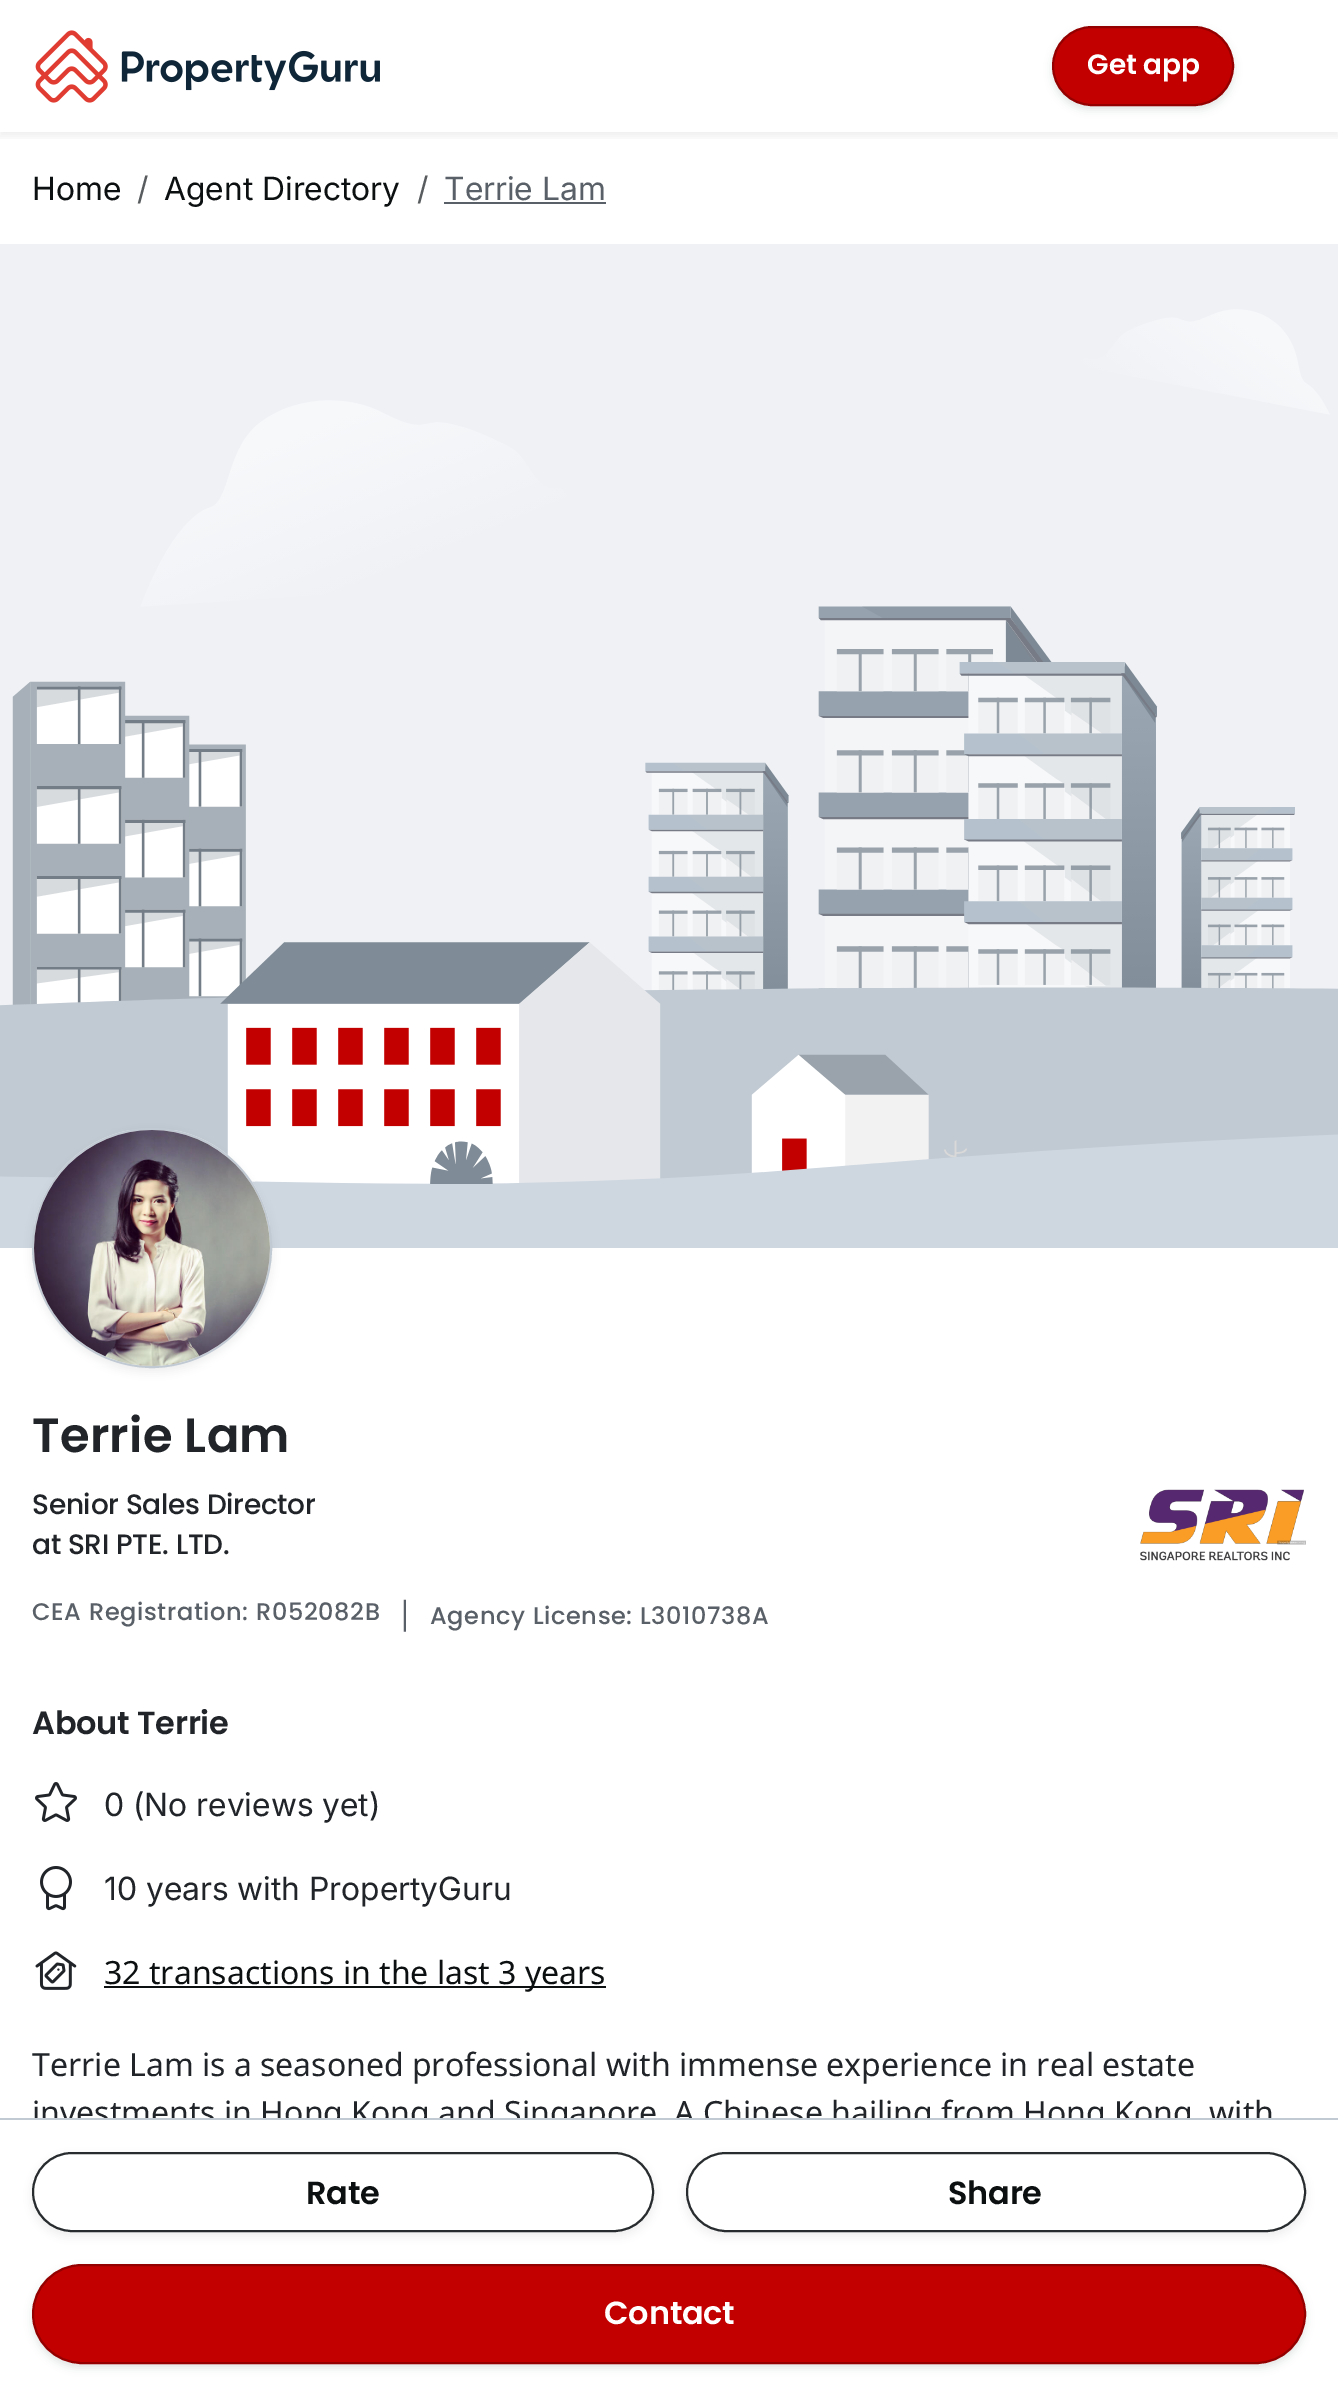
%!PS-Adobe-3.0
%%BoundingBox: 0 0 1338 2395
%%LanguageLevel: 3
%%Pages: 1
%%EndComments
%%BeginProlog
/setink { 3 { 255 div 3 1 roll } repeat setrgbcolor } def
/usefont { [ exch dup neg 0 0 3 -1 roll 0 0 ] selectfont } def
/drawtext { setink usefont moveto show } def
/fillbox { setink rectfill } def
/setalpha { dup .setfillconstantalpha .setstrokeconstantalpha } def
/disc { newpath 0 360 arc closepath } def
/rrect { 5 dict begin { /r /h /w /y /x } { exch def } forall
  x r add y moveto x w add y 2 copy h add r arct x w add y h add x 1 index r arct
  x y h add x y r arct x y 2 copy exch w add exch r arct closepath end } def
/softshadow { 12 dict begin { /a /b /q /h /w /y /x } { exch def } forall gsave /was 0 def
  9 -2 -9 { dup b mul 4 div /e exch def 1 sub .425 mul 2.718 exch exp 1 add a .99 .min exch div /now exch def
    1 1 now sub 1 was sub div sub setalpha /was now def
    w h .min e 2 mul add 0 gt { x e sub y e sub w e 2 mul add h e 2 mul add
      q e add b .6 mul add w h .min 2 div e add .min 0 .max rrect fill } if } for grestore end } def
/drawimage { 5 dict begin { /h /w /y /x /name } { exch def } forall
  gsave x y translate w h scale
  w h 8 [w 0 0 h 0 0] name (r) file false 3 colorimage grestore end } def
%%EndProlog
%%BeginSetup
<< /PageSize [1338 2395] /PageUsesTransparency true >> setpagedevice
%%EndSetup
%%Page: 1 1
0 .pushpdf14devicefilter
0 2395 translate 1 -1 scale
4 setmiterlimit
0 0 1338 2395 255 255 255 fillbox
gsave
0 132 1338 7 rectclip
40 44 46 setink
0 4 1338 132 0 4 0.08 softshadow
grestore
(assets/img1.rgb) 35 30 345 73 drawimage
40 44 46 setink
1052 30 182 80 40 4 0.12 softshadow
194 0 0 setink
1053 27 180 78 39 rrect gsave fill grestore
148 0 0 setink
2 setlinewidth
stroke
(Get app) 1087 74 /Poppins-SemiBold 28 255 255 255 drawtext
(Home) 32 200 /Inter-Regular 32 13 16 17 drawtext
(/) 137 200 /Inter-Regular 32 89 92 95 drawtext
(Agent Directory) 164 200 /Inter-Regular 32 13 16 17 drawtext
(/) 417 200 /Inter-Regular 32 89 92 95 drawtext
(Terrie Lam) 444 200 /Inter-Regular 32 90 96 103 drawtext
444 202 162 2 90 96 103 fillbox
(assets/img2.rgb) 0 244 1338 1004 drawimage
40 44 46 setink
32 1132 240 240 120 4 0.08 softshadow
239 241 245 setink
152 1248 119 disc gsave fill grestore
193 201 210 setink
stroke
(assets/img3.rgb) 34 1130 236 236 drawimage
/Poppins-SemiBold 48 usefont
33 37 41 setink
32 1452 moveto 0.25 0 (Terrie Lam) ashow
/Poppins-Medium 28 usefont
32 1514 moveto -0.3 0 (Senior Sales Director) ashow
32 1554 moveto -0.3 0 (at SRI PTE. LTD.) ashow
(assets/img4.rgb) 1140 1489 166 72 drawimage
/Poppins-Medium 24 usefont
90 96 103 setink
32 1620 moveto 0.65 0 (CEA Registration: R052082B) ashow
(|) 396 1624 /NotoSans-Regular 32 90 96 103 drawtext
/Poppins-Medium 24 usefont
430 1624 moveto 0.65 0 (Agency License: L3010738A) ashow
/Poppins-SemiBold 32 usefont
33 37 41 setink
32 1734 moveto -0.2 0 (About Terrie) ashow
(assets/img5.rgb) 35 1782 42 40 drawimage
(0 \(No reviews yet\)) 104 1816 /Inter-Regular 32 33 37 41 drawtext
(assets/img6.rgb) 40 1866 32 45 drawimage
(10 years with PropertyGuru) 104 1900 /Inter-Regular 32 33 37 41 drawtext
(assets/img7.rgb) 35 1951 42 39 drawimage
104 1986 502 2 13 16 17 fillbox
(32 transactions in the last 3 years) 104 1984 /NotoSans-Regular 32 13 16 17 drawtext
(Terrie Lam is a seasoned professional with immense experience in real estate) 32 2076 /NotoSans-Regular 32 33 37 41 drawtext
(investments in Hong Kong and Singapore. A Chinese hailing from Hong Kong, with) 32 2124 /NotoSans-Regular 32 33 37 41 drawtext
34 2120 1238 12 255 255 255 fillbox
0 2118 1338 2 193 201 210 fillbox
gsave
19 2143 moveto 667 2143 lineto 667 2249 lineto 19 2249 lineto closepath 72 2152 moveto 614 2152 lineto 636 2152 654 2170 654 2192 curveto 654 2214 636 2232 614 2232 curveto 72 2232 lineto 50 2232 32 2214 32 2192 curveto 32 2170 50 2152 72 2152 curveto closepath eoclip newpath
40 44 46 setink
32 2156 622 80 40 4 0.08 softshadow
grestore
40 44 46 setink
33 2153 620 78 39 rrect stroke
/Poppins-SemiBold 32 usefont
13 16 17 setink
306 2204 moveto -0.2 0 (Rate) ashow
gsave
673 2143 moveto 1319 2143 lineto 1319 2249 lineto 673 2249 lineto closepath 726 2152 moveto 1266 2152 lineto 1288 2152 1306 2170 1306 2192 curveto 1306 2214 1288 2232 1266 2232 curveto 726 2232 lineto 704 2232 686 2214 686 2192 curveto 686 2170 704 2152 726 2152 curveto closepath eoclip newpath
40 44 46 setink
686 2156 620 80 40 4 0.08 softshadow
grestore
40 44 46 setink
687 2153 618 78 39 rrect stroke
13 16 17 setink
948 2204 moveto -0.2 0 (Share) ashow
40 44 46 setink
32 2268 1274 100 50 4 0.12 softshadow
194 0 0 setink
33 2265 1272 98 49 rrect gsave fill grestore
148 0 0 setink
stroke
255 255 255 setink
604 2324 moveto -0.2 0 (Contact) ashow
.poppdf14devicefilter showpage
%%EOF
